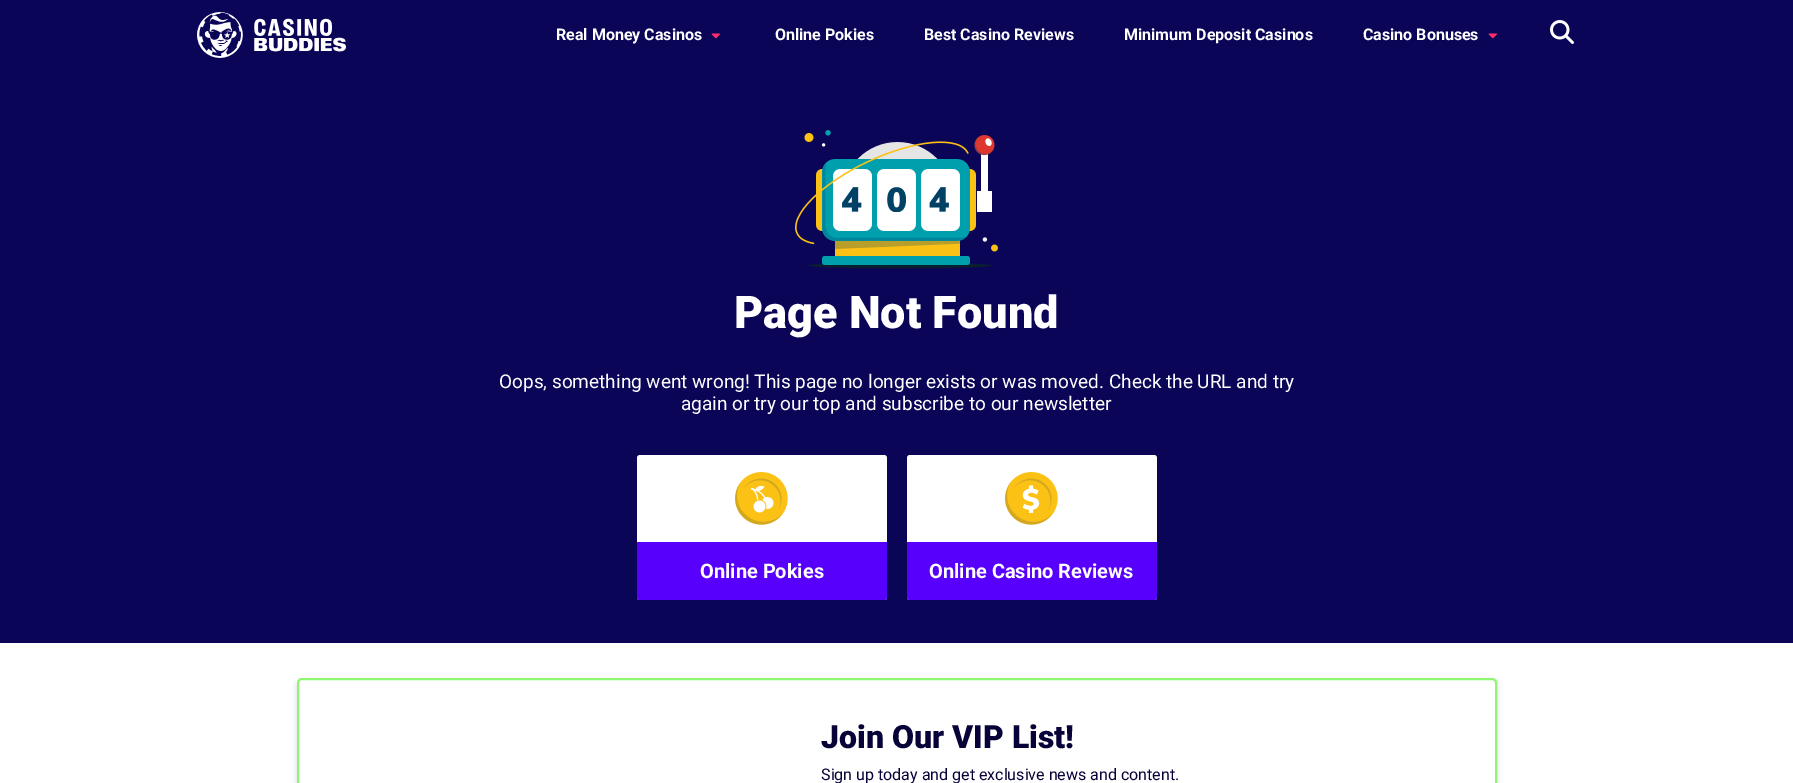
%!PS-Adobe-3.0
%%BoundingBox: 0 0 1793 783
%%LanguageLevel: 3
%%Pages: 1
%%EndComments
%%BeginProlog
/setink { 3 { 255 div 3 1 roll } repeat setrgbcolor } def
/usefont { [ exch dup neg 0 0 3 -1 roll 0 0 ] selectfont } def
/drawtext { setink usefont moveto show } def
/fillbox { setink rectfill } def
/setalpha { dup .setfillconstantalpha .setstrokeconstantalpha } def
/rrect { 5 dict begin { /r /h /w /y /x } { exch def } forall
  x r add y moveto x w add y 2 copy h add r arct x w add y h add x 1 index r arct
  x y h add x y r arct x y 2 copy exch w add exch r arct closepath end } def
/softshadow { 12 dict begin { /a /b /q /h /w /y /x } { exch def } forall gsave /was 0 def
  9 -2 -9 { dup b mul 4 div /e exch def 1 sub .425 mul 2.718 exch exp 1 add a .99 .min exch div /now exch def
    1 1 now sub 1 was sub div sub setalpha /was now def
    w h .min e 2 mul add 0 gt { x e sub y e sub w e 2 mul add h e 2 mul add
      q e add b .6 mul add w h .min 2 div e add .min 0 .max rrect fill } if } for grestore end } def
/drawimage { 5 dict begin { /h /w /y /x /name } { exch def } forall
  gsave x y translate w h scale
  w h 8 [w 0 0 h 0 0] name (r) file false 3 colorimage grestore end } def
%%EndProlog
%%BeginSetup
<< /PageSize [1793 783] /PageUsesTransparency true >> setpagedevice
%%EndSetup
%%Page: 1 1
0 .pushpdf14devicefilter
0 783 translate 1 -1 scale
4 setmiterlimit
0 0 1793 783 11 5 88 fillbox
(assets/img1.rgb) 197 12 149 46 drawimage
(Real Money Casinos) 556 40 /Roboto-Bold 16 255 255 255 drawtext
(assets/img2.rgb) 711 33 9 6 drawimage
(Online Pokies) 775 40 /Roboto-Bold 16 255 255 255 drawtext
(Best Casino Reviews) 924 40 /Roboto-Bold 16 255 255 255 drawtext
(Minimum Deposit Casinos) 1124 40 /Roboto-Bold 16 255 255 255 drawtext
(Casino Bonuses) 1363 40 /Roboto-Bold 16 255 255 255 drawtext
(assets/img2.rgb) 1488 33 9 6 drawimage
(assets/img3.rgb) 1550 20 24 24 drawimage
(assets/img4.rgb) 795 130 203 139 drawimage
(Page Not Found) 734 328 /Roboto-Black 45 255 255 255 drawtext
(Oops, something went wrong! This page no longer exists or was moved. Check the URL and try) 499 388 /Roboto-Regular 19 255 255 255 drawtext
(again or try our top and subscribe to our newsletter) 681 410 /Roboto-Regular 19 255 255 255 drawtext
637 455 250 145 3 rrect fill
(assets/img5.rgb) 735 472 53 53 drawimage
87 0 251 setink
637 542 moveto 887 542 lineto 887 597 lineto 887 598.5 885.5 600 884 600 curveto 640 600 lineto 638.5 600 637 598.5 637 597 curveto closepath fill
(Online Pokies) 700 578 /Roboto-Bold 20 255 255 255 drawtext
907 455 250 145 3 rrect fill
(assets/img6.rgb) 1005 472 53 53 drawimage
87 0 251 setink
907 542 moveto 1157 542 lineto 1157 597 lineto 1157 598.5 1155.5 600 1154 600 curveto 910 600 lineto 908.5 600 907 598.5 907 597 curveto closepath fill
(Online Casino Reviews) 929 578 /Roboto-Bold 20 255 255 255 drawtext
0 643 1793 140 255 255 255 fillbox
0 0 0 setink
297 681 1200 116 5 3 0.15 softshadow
255 255 255 setink
298 679 1198 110 4 rrect gsave fill grestore
142 246 114 setink
2 setlinewidth
stroke
(Join Our VIP List!) 821 748 /Roboto-Black 32 7 3 57 drawtext
(Sign up today and get exclusive news and content.) 821 780 /Roboto-Regular 16 7 3 57 drawtext
.poppdf14devicefilter showpage
%%EOF
